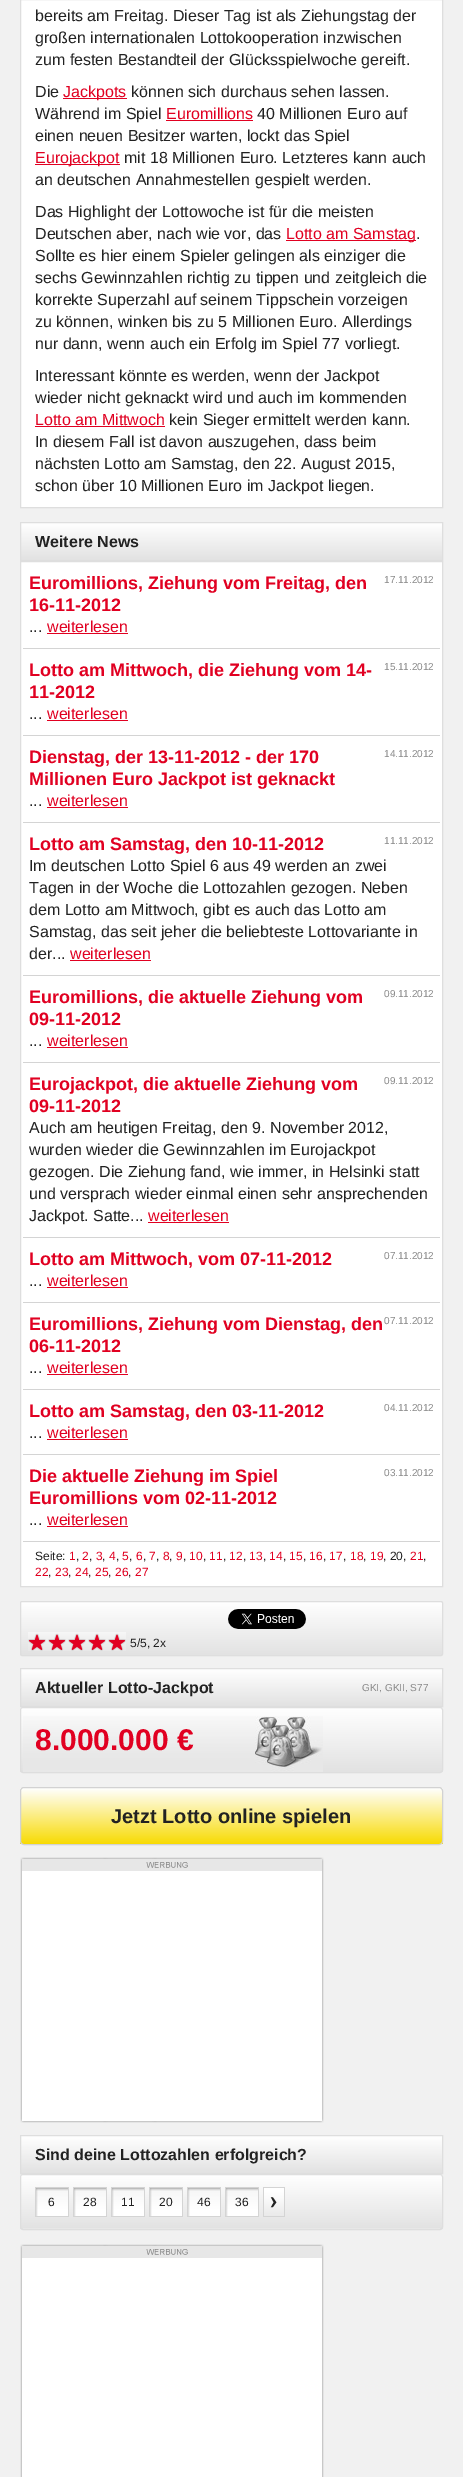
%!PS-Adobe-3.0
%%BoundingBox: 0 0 463 2477
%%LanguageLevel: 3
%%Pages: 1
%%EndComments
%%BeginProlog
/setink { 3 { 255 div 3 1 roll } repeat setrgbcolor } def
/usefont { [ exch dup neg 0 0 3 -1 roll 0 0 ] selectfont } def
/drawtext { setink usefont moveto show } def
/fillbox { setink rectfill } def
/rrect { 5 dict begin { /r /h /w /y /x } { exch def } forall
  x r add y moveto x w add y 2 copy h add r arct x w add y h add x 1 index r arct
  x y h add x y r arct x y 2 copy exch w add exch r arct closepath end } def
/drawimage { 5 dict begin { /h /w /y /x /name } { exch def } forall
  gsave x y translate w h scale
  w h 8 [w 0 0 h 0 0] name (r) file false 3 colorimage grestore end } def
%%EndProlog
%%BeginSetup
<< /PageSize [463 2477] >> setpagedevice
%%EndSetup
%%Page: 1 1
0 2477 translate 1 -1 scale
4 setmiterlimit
0 0 463 2477 241 241 241 fillbox
255 255 255 setink
20.5 -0.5 moveto 442.5 -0.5 lineto 442.5 507.5 lineto 20.5 507.5 lineto closepath gsave fill grestore
222 222 222 setink
stroke
(bereits am Freitag. Dieser Tag ist als Ziehungstag der) 35 21 /LiberationSans-Regular 16 34 34 34 drawtext
(großen internationalen Lottokooperation inzwischen) 35 43 /LiberationSans-Regular 16 34 34 34 drawtext
(zum festen Bestandteil der Glücksspielwoche gereift.) 35 65 /LiberationSans-Regular 16 34 34 34 drawtext
(Die) 35 97 /LiberationSans-Regular 16 34 34 34 drawtext
63 98 64 1 225 0 33 fillbox
(Jackpots) 63 97 /LiberationSans-Regular 16 225 0 33 drawtext
(können sich durchaus sehen lassen.) 131 97 /LiberationSans-Regular 16 34 34 34 drawtext
(Während im Spiel) 35 119 /LiberationSans-Regular 16 34 34 34 drawtext
(Euromillions) 166 119 /LiberationSans-Regular 16 225 0 33 drawtext
166 120 87 1 225 0 33 fillbox
(40 Millionen Euro auf) 257 119 /LiberationSans-Regular 16 34 34 34 drawtext
(einen neuen Besitzer warten, lockt das Spiel) 35 141 /LiberationSans-Regular 16 34 34 34 drawtext
35 164 85 1 225 0 33 fillbox
(Eurojackpot) 35 163 /LiberationSans-Regular 16 225 0 33 drawtext
(mit 18 Millionen Euro. Letzteres kann auch) 124 163 /LiberationSans-Regular 16 34 34 34 drawtext
(an deutschen Annahmestellen gespielt werden.) 35 185 /LiberationSans-Regular 16 34 34 34 drawtext
(Das Highlight der Lottowoche ist für die meisten) 35 217 /LiberationSans-Regular 16 34 34 34 drawtext
(Deutschen aber, nach wie vor, das) 35 239 /LiberationSans-Regular 16 34 34 34 drawtext
286 240 130 1 225 0 33 fillbox
(Lotto am Samstag) 286 239 /LiberationSans-Regular 16 225 0 33 drawtext
(.) 416 239 /LiberationSans-Regular 16 34 34 34 drawtext
(Sollte es hier einem Spieler gelingen als einziger die) 35 261 /LiberationSans-Regular 16 34 34 34 drawtext
(sechs Gewinnzahlen richtig zu tippen und zeitgleich die) 35 283 /LiberationSans-Regular 16 34 34 34 drawtext
(korrekte Superzahl auf seinem Tippschein vorzeigen) 35 305 /LiberationSans-Regular 16 34 34 34 drawtext
(zu können, winken bis zu 5 Millionen Euro. Allerdings) 35 327 /LiberationSans-Regular 16 34 34 34 drawtext
(nur dann, wenn auch ein Erfolg im Spiel 77 vorliegt.) 35 349 /LiberationSans-Regular 16 34 34 34 drawtext
(Interessant könnte es werden, wenn der Jackpot) 35 381 /LiberationSans-Regular 16 34 34 34 drawtext
(wieder nicht geknackt wird und auch im kommenden) 35 403 /LiberationSans-Regular 16 34 34 34 drawtext
(Lotto am Mittwoch) 35 425 /LiberationSans-Regular 16 225 0 33 drawtext
35 426 130 1 225 0 33 fillbox
(kein Sieger ermittelt werden kann.) 169 425 /LiberationSans-Regular 16 34 34 34 drawtext
(In diesem Fall ist davon auszugehen, dass beim) 35 447 /LiberationSans-Regular 16 34 34 34 drawtext
(nächsten Lotto am Samstag, den 22. August 2015,) 35 469 /LiberationSans-Regular 16 34 34 34 drawtext
(schon über 10 Millionen Euro im Jackpot liegen.) 35 491 /LiberationSans-Regular 16 34 34 34 drawtext
gsave 21 523 moveto 442 523 lineto 442 560 lineto 21 560 lineto closepath clip newpath
<< /ShadingType 2 /ColorSpace /DeviceRGB /Coords [232 523 232 560] /Extend [true true] /Function << /FunctionType 2 /Domain [0 1] /C0 [1 1 1] /C1 [0.886 0.886 0.886] /N 1 >> >> shfill grestore
222 222 222 setink
20.5 522.5 422 38 rectstroke
(Weitere News) 35 547 /LiberationSans-Bold 16 34 34 34 drawtext
255 255 255 setink
20.5 561.5 moveto 442.5 561.5 lineto 442.5 1586.5 lineto 20.5 1586.5 lineto closepath gsave fill grestore
222 222 222 setink
stroke
23 648 417 1 212 212 212 fillbox
(Euromillions, Ziehung vom Freitag, den) 29 589 /LiberationSans-Bold 18 225 0 33 drawtext
(16-11-2012) 29 611 /LiberationSans-Bold 18 225 0 33 drawtext
(17.11.2012) 384 583 /LiberationSans-Regular 10 136 136 136 drawtext
(...) 29 632 /LiberationSans-Regular 16 34 34 34 drawtext
(weiterlesen) 47 632 /LiberationSans-Regular 16 225 0 33 drawtext
47 633 81 1 225 0 33 fillbox
23 735 417 1 212 212 212 fillbox
(Lotto am Mittwoch, die Ziehung vom 14-) 29 676 /LiberationSans-Bold 18 225 0 33 drawtext
(11-2012) 29 698 /LiberationSans-Bold 18 225 0 33 drawtext
(15.11.2012) 384 670 /LiberationSans-Regular 10 136 136 136 drawtext
(...) 29 719 /LiberationSans-Regular 16 34 34 34 drawtext
(weiterlesen) 47 719 /LiberationSans-Regular 16 225 0 33 drawtext
47 720 81 1 225 0 33 fillbox
23 822 417 1 212 212 212 fillbox
(Dienstag, der 13-11-2012 - der 170) 29 763 /LiberationSans-Bold 18 225 0 33 drawtext
(Millionen Euro Jackpot ist geknackt) 29 785 /LiberationSans-Bold 18 225 0 33 drawtext
(14.11.2012) 384 757 /LiberationSans-Regular 10 136 136 136 drawtext
(...) 29 806 /LiberationSans-Regular 16 34 34 34 drawtext
(weiterlesen) 47 806 /LiberationSans-Regular 16 225 0 33 drawtext
47 807 81 1 225 0 33 fillbox
23 975 417 1 212 212 212 fillbox
(Lotto am Samstag, den 10-11-2012) 29 850 /LiberationSans-Bold 18 225 0 33 drawtext
(11.11.2012) 384 844 /LiberationSans-Regular 10 136 136 136 drawtext
(Im deutschen Lotto Spiel 6 aus 49 werden an zwei) 29 871 /LiberationSans-Regular 16 34 34 34 drawtext
(Tagen in der Woche die Lottozahlen gezogen. Neben) 29 893 /LiberationSans-Regular 16 34 34 34 drawtext
(dem Lotto am Mittwoch, gibt es auch das Lotto am) 29 915 /LiberationSans-Regular 16 34 34 34 drawtext
(Samstag, das seit jeher die beliebteste Lottovariante in) 29 937 /LiberationSans-Regular 16 34 34 34 drawtext
(der...) 29 959 /LiberationSans-Regular 16 34 34 34 drawtext
(weiterlesen) 70 959 /LiberationSans-Regular 16 225 0 33 drawtext
70 960 81 1 225 0 33 fillbox
23 1062 417 1 212 212 212 fillbox
(Euromillions, die aktuelle Ziehung vom) 29 1003 /LiberationSans-Bold 18 225 0 33 drawtext
(09-11-2012) 29 1025 /LiberationSans-Bold 18 225 0 33 drawtext
(09.11.2012) 384 997 /LiberationSans-Regular 10 136 136 136 drawtext
(...) 29 1046 /LiberationSans-Regular 16 34 34 34 drawtext
(weiterlesen) 47 1046 /LiberationSans-Regular 16 225 0 33 drawtext
47 1047 81 1 225 0 33 fillbox
23 1237 417 1 212 212 212 fillbox
(Eurojackpot, die aktuelle Ziehung vom) 29 1090 /LiberationSans-Bold 18 225 0 33 drawtext
(09-11-2012) 29 1112 /LiberationSans-Bold 18 225 0 33 drawtext
(09.11.2012) 384 1084 /LiberationSans-Regular 10 136 136 136 drawtext
(Auch am heutigen Freitag, den 9. November 2012,) 29 1133 /LiberationSans-Regular 16 34 34 34 drawtext
(wurden wieder die Gewinnzahlen im Eurojackpot) 29 1155 /LiberationSans-Regular 16 34 34 34 drawtext
(gezogen. Die Ziehung fand, wie immer, in Helsinki statt) 29 1177 /LiberationSans-Regular 16 34 34 34 drawtext
(und versprach wieder einmal einen sehr ansprechenden) 29 1199 /LiberationSans-Regular 16 34 34 34 drawtext
(Jackpot. Satte...) 29 1221 /LiberationSans-Regular 16 34 34 34 drawtext
(weiterlesen) 148 1221 /LiberationSans-Regular 16 225 0 33 drawtext
148 1222 81 1 225 0 33 fillbox
23 1302 417 1 212 212 212 fillbox
(Lotto am Mittwoch, vom 07-11-2012) 29 1265 /LiberationSans-Bold 18 225 0 33 drawtext
(07.11.2012) 384 1259 /LiberationSans-Regular 10 136 136 136 drawtext
(...) 29 1286 /LiberationSans-Regular 16 34 34 34 drawtext
(weiterlesen) 47 1286 /LiberationSans-Regular 16 225 0 33 drawtext
47 1287 81 1 225 0 33 fillbox
23 1389 417 1 212 212 212 fillbox
(Euromillions, Ziehung vom Dienstag, den) 29 1330 /LiberationSans-Bold 18 225 0 33 drawtext
(06-11-2012) 29 1352 /LiberationSans-Bold 18 225 0 33 drawtext
(07.11.2012) 384 1324 /LiberationSans-Regular 10 136 136 136 drawtext
(...) 29 1373 /LiberationSans-Regular 16 34 34 34 drawtext
(weiterlesen) 47 1373 /LiberationSans-Regular 16 225 0 33 drawtext
47 1374 81 1 225 0 33 fillbox
23 1454 417 1 212 212 212 fillbox
(Lotto am Samstag, den 03-11-2012) 29 1417 /LiberationSans-Bold 18 225 0 33 drawtext
(04.11.2012) 384 1411 /LiberationSans-Regular 10 136 136 136 drawtext
(...) 29 1438 /LiberationSans-Regular 16 34 34 34 drawtext
(weiterlesen) 47 1438 /LiberationSans-Regular 16 225 0 33 drawtext
47 1439 81 1 225 0 33 fillbox
23 1541 417 1 212 212 212 fillbox
(Die aktuelle Ziehung im Spiel) 29 1482 /LiberationSans-Bold 18 225 0 33 drawtext
(Euromillions vom 02-11-2012) 29 1504 /LiberationSans-Bold 18 225 0 33 drawtext
(03.11.2012) 384 1476 /LiberationSans-Regular 10 136 136 136 drawtext
(...) 29 1525 /LiberationSans-Regular 16 34 34 34 drawtext
(weiterlesen) 47 1525 /LiberationSans-Regular 16 225 0 33 drawtext
47 1526 81 1 225 0 33 fillbox
(Seite:) 35 1560 /LiberationSans-Regular 12 34 34 34 drawtext
(1) 69 1560 /LiberationSans-Regular 12 225 0 33 drawtext
(,) 76 1560 /LiberationSans-Regular 12 34 34 34 drawtext
(2) 82 1560 /LiberationSans-Regular 12 225 0 33 drawtext
(,) 89 1560 /LiberationSans-Regular 12 34 34 34 drawtext
(3) 96 1560 /LiberationSans-Regular 12 225 0 33 drawtext
(,) 102 1560 /LiberationSans-Regular 12 34 34 34 drawtext
(4) 109 1560 /LiberationSans-Regular 12 225 0 33 drawtext
(,) 116 1560 /LiberationSans-Regular 12 34 34 34 drawtext
(5) 122 1560 /LiberationSans-Regular 12 225 0 33 drawtext
(,) 129 1560 /LiberationSans-Regular 12 34 34 34 drawtext
(6) 136 1560 /LiberationSans-Regular 12 225 0 33 drawtext
(,) 143 1560 /LiberationSans-Regular 12 34 34 34 drawtext
(7) 149 1560 /LiberationSans-Regular 12 225 0 33 drawtext
(,) 156 1560 /LiberationSans-Regular 12 34 34 34 drawtext
(8) 163 1560 /LiberationSans-Regular 12 225 0 33 drawtext
(,) 169 1560 /LiberationSans-Regular 12 34 34 34 drawtext
(9) 176 1560 /LiberationSans-Regular 12 225 0 33 drawtext
(,) 183 1560 /LiberationSans-Regular 12 34 34 34 drawtext
(10) 189 1560 /LiberationSans-Regular 12 225 0 33 drawtext
(,) 203 1560 /LiberationSans-Regular 12 34 34 34 drawtext
(11) 209 1560 /LiberationSans-Regular 12 225 0 33 drawtext
(,) 223 1560 /LiberationSans-Regular 12 34 34 34 drawtext
(12) 229 1560 /LiberationSans-Regular 12 225 0 33 drawtext
(,) 243 1560 /LiberationSans-Regular 12 34 34 34 drawtext
(13) 249 1560 /LiberationSans-Regular 12 225 0 33 drawtext
(,) 263 1560 /LiberationSans-Regular 12 34 34 34 drawtext
(14) 269 1560 /LiberationSans-Regular 12 225 0 33 drawtext
(,) 283 1560 /LiberationSans-Regular 12 34 34 34 drawtext
(15) 289 1560 /LiberationSans-Regular 12 225 0 33 drawtext
(,) 303 1560 /LiberationSans-Regular 12 34 34 34 drawtext
(16) 309 1560 /LiberationSans-Regular 12 225 0 33 drawtext
(,) 323 1560 /LiberationSans-Regular 12 34 34 34 drawtext
(17) 329 1560 /LiberationSans-Regular 12 225 0 33 drawtext
(,) 343 1560 /LiberationSans-Regular 12 34 34 34 drawtext
(18) 350 1560 /LiberationSans-Regular 12 225 0 33 drawtext
(,) 363 1560 /LiberationSans-Regular 12 34 34 34 drawtext
(19) 370 1560 /LiberationSans-Regular 12 225 0 33 drawtext
(, 20,) 383 1560 /LiberationSans-Regular 12 34 34 34 drawtext
(21) 410 1560 /LiberationSans-Regular 12 225 0 33 drawtext
(,) 423 1560 /LiberationSans-Regular 12 34 34 34 drawtext
(22) 35 1576 /LiberationSans-Regular 12 225 0 33 drawtext
(,) 48 1576 /LiberationSans-Regular 12 34 34 34 drawtext
(23) 55 1576 /LiberationSans-Regular 12 225 0 33 drawtext
(,) 68 1576 /LiberationSans-Regular 12 34 34 34 drawtext
(24) 75 1576 /LiberationSans-Regular 12 225 0 33 drawtext
(,) 88 1576 /LiberationSans-Regular 12 34 34 34 drawtext
(25) 95 1576 /LiberationSans-Regular 12 225 0 33 drawtext
(,) 108 1576 /LiberationSans-Regular 12 34 34 34 drawtext
(26) 115 1576 /LiberationSans-Regular 12 225 0 33 drawtext
(,) 128 1576 /LiberationSans-Regular 12 34 34 34 drawtext
(27) 135 1576 /LiberationSans-Regular 12 225 0 33 drawtext
gsave
20 1601 423 55 2 rrect clip newpath
gsave 20 1602 moveto 443 1602 lineto 443 1655 lineto 20 1655 lineto closepath clip newpath
<< /ShadingType 2 /ColorSpace /DeviceRGB /Coords [232 1602 232 1655] /Extend [true true] /Function << /FunctionType 2 /Domain [0 1] /C0 [1 1 1] /C1 [0.886 0.886 0.886] /N 1 >> >> shfill grestore
grestore
222 222 222 setink
20.5 1601.5 422 54 1.5 rrect stroke
(assets/img1.rgb) 228 1609 78 20 drawimage
(assets/img2.rgb) 28 1632 98 19 drawimage
(5/5, 2x) 130 1647 /LiberationSans-Regular 12 34 34 34 drawtext
gsave 21 1669 moveto 442 1669 lineto 442 1706 lineto 21 1706 lineto closepath clip newpath
<< /ShadingType 2 /ColorSpace /DeviceRGB /Coords [232 1669 232 1706] /Extend [true true] /Function << /FunctionType 2 /Domain [0 1] /C0 [1 1 1] /C1 [0.886 0.886 0.886] /N 1 >> >> shfill grestore
222 222 222 setink
20.5 1668.5 422 38 rectstroke
(Aktueller Lotto-Jackpot) 35 1693 /LiberationSans-Bold 16 34 34 34 drawtext
(GKI, GKII, S77) 362 1691 /LiberationSans-Regular 10 136 136 136 drawtext
gsave
20 1707 423 66 3 rrect clip newpath
gsave 20 1708 moveto 443 1708 lineto 443 1772 lineto 20 1772 lineto closepath clip newpath
<< /ShadingType 2 /ColorSpace /DeviceRGB /Coords [232 1708 232 1772] /Extend [true true] /Function << /FunctionType 2 /Domain [0 1] /C0 [1 1 1] /C1 [0.886 0.886 0.886] /N 1 >> >> shfill grestore
grestore
222 222 222 setink
20.5 1707.5 422 65 2.5 rrect stroke
(assets/img3.rgb) 23 1716 300 56 drawimage
(8.000.000 €) 35 1750 /LiberationSans-Bold 30 225 0 33 drawtext
gsave
20 1787 423 58 4 rrect clip newpath
gsave 20 1788 moveto 443 1788 lineto 443 1844 lineto 20 1844 lineto closepath clip newpath
<< /ShadingType 2 /ColorSpace /DeviceRGB /Coords [232 1788 232 1844] /Extend [true true] /Function << /FunctionType 2 /Domain [0 1] /C0 [1 1 1] /C1 [0.973 0.859 0.012] /N 1 >> >> shfill grestore
grestore
210 210 210 setink
20.5 1787.5 422 57 3.5 rrect stroke
(Jetzt Lotto online spielen) 111 1823 /LiberationSans-Bold 20 34 34 34 drawtext
(assets/img4.rgb) 20 1857 304 266 drawimage
gsave 21 2136 moveto 442 2136 lineto 442 2173 lineto 21 2173 lineto closepath clip newpath
<< /ShadingType 2 /ColorSpace /DeviceRGB /Coords [232 2136 232 2173] /Extend [true true] /Function << /FunctionType 2 /Domain [0 1] /C0 [1 1 1] /C1 [0.886 0.886 0.886] /N 1 >> >> shfill grestore
222 222 222 setink
20.5 2135.5 422 38 rectstroke
(Sind deine Lottozahlen erfolgreich?) 35 2160 /LiberationSans-Bold 16 34 34 34 drawtext
gsave
20 2174 423 56 3 rrect clip newpath
gsave 20 2175 moveto 443 2175 lineto 443 2229 lineto 20 2229 lineto closepath clip newpath
<< /ShadingType 2 /ColorSpace /DeviceRGB /Coords [232 2175 232 2229] /Extend [true true] /Function << /FunctionType 2 /Domain [0 1] /C0 [1 1 1] /C1 [0.886 0.886 0.886] /N 1 >> >> shfill grestore
grestore
222 222 222 setink
20.5 2174.5 422 55 2.5 rrect stroke
23 2228 417 1 231 231 231 fillbox
(assets/img5.rgb) 35 2187 33 30 drawimage
68 2187 1 30 212 212 212 fillbox
(6) 48 2206 /LiberationSans-Regular 12 34 34 34 drawtext
(assets/img5.rgb) 73 2187 33 30 drawimage
106 2187 1 30 212 212 212 fillbox
(28) 83 2206 /LiberationSans-Regular 12 34 34 34 drawtext
(assets/img5.rgb) 111 2187 33 30 drawimage
144 2187 1 30 212 212 212 fillbox
(11) 121 2206 /LiberationSans-Regular 12 34 34 34 drawtext
(assets/img5.rgb) 149 2187 33 30 drawimage
182 2187 1 30 212 212 212 fillbox
(20) 159 2206 /LiberationSans-Regular 12 34 34 34 drawtext
(assets/img5.rgb) 187 2187 33 30 drawimage
220 2187 1 30 212 212 212 fillbox
(46) 197 2206 /LiberationSans-Regular 12 34 34 34 drawtext
(assets/img5.rgb) 225 2187 33 30 drawimage
258 2187 1 30 212 212 212 fillbox
(36) 235 2206 /LiberationSans-Regular 12 34 34 34 drawtext
(assets/img6.rgb) 263 2187 22 30 drawimage
(assets/img7.rgb) 20 2244 304 233 drawimage
showpage
%%EOF
